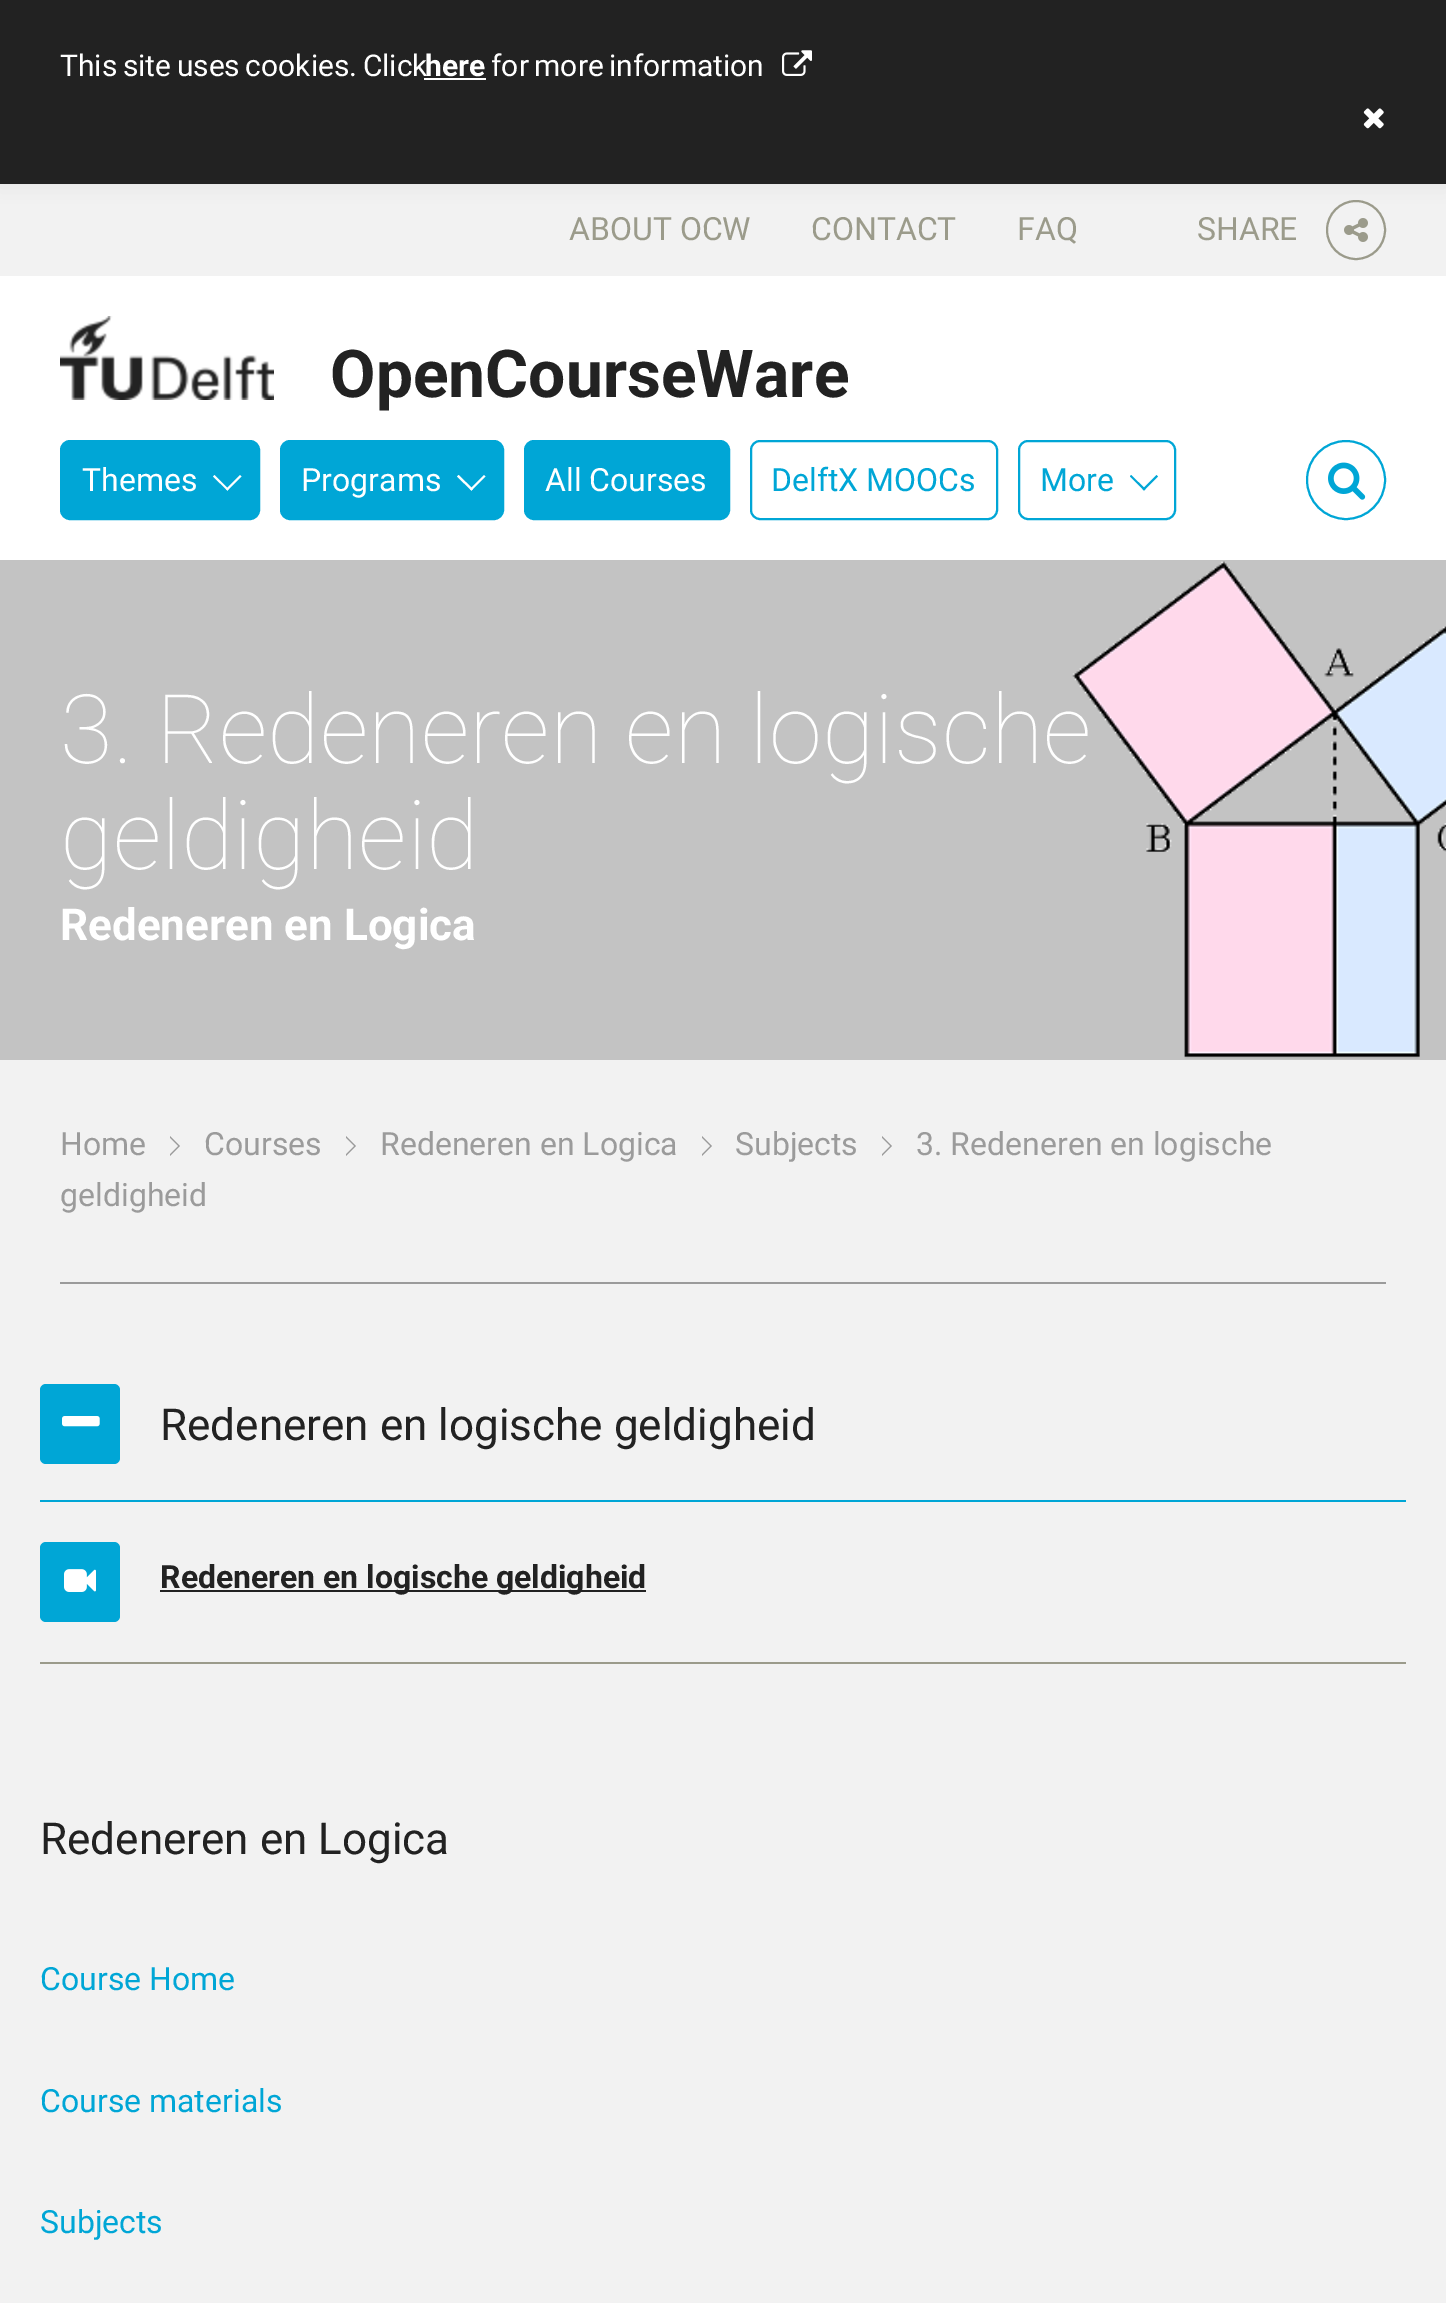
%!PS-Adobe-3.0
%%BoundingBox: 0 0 1446 2303
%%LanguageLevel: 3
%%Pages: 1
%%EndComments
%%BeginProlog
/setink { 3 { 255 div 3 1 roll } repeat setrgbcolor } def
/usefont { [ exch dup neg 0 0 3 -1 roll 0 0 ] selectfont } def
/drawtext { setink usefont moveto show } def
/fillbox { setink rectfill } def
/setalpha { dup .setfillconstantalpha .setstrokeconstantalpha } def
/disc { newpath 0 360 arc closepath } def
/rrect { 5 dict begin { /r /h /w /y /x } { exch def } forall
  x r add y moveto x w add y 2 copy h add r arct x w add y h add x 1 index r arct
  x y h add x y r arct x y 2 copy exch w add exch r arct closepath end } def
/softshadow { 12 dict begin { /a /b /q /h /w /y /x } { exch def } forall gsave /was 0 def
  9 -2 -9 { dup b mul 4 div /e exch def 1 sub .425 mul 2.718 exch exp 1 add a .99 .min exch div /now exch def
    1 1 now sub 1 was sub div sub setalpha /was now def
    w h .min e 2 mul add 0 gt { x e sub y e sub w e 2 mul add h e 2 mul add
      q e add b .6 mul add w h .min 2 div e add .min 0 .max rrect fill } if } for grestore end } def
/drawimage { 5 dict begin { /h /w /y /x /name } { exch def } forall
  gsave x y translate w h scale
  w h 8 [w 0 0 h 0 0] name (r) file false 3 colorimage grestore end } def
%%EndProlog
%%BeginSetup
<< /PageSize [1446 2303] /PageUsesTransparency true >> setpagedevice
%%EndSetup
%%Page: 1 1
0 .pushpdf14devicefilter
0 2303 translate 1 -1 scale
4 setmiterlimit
0 0 1446 2303 242 242 242 fillbox
155 155 139 setink
2 setlinewidth
1356 230 29 disc stroke
172 171 171 setink
0 -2 1446 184 0 10 0.3 softshadow
0 0 1446 184 34 34 34 fillbox
/Roboto-Regular 30 usefont
255 255 255 setink
60 76 moveto -2 0 32 (This site uses cookies. Click) widthshow
(here) 425 76 /Roboto-Bold 30 255 255 255 drawtext
424 78 62 2 255 255 255 fillbox
/Roboto-Regular 30 usefont
491 76 moveto -2 0 32 (for more information) widthshow
(assets/img1.rgb) 782 50 30 26 drawimage
(assets/img2.rgb) 1363 108 21 21 drawimage
(ABOUT OCW) 569 240 /Roboto-Regular 32 155 155 139 drawtext
(CONTACT) 811 240 /Roboto-Regular 32 155 155 139 drawtext
(FAQ) 1017 240 /Roboto-Regular 32 155 155 139 drawtext
(SHARE) 1197 240 /Roboto-Regular 32 155 155 139 drawtext
(assets/img3.rgb) 1344 218 24 24 drawimage
0 276 1446 284 255 255 255 fillbox
(assets/img4.rgb) 60 316 214 84 drawimage
(OpenCourseWare) 330 397 /Roboto-Bold 66 34 34 34 drawtext
0 166 214 setink
61 441 198 78 9 rrect gsave fill grestore
stroke
(Themes) 82 491 /Roboto-Regular 32 255 255 255 drawtext
227.5 490.5 moveto 213 476.5 lineto 214.5 475 lineto 228.5 489 lineto closepath fill
227.5 490.5 moveto 226 489 lineto 240 475 lineto 241.5 476.5 lineto closepath fill
0 166 214 setink
281 441 222 78 9 rrect gsave fill grestore
stroke
(Programs) 301 491 /Roboto-Regular 32 255 255 255 drawtext
471.5 490.5 moveto 457 476.5 lineto 458.5 475 lineto 473 489 lineto closepath fill
471.5 490.5 moveto 470 489 lineto 484 475 lineto 485.5 476.5 lineto closepath fill
0 166 214 setink
525 441 204 78 9 rrect gsave fill grestore
stroke
(All Courses) 545 491 /Roboto-Regular 32 255 255 255 drawtext
0 166 214 setink
751 441 246 78 9 rrect stroke
(DelftX MOOCs) 771 491 /Roboto-Regular 32 0 166 214 drawtext
1019 441 156 78 9 rrect stroke
(More) 1040 491 /Roboto-Regular 32 0 166 214 drawtext
1144 490.5 moveto 1130 476.5 lineto 1131 475 lineto 1145.5 489 lineto closepath fill
1144 490.5 moveto 1142.5 489 lineto 1156.5 475 lineto 1158 476.5 lineto closepath fill
1346 480 39 disc stroke
(assets/img5.rgb) 1328 462 38 38 drawimage
(assets/img6.rgb) 0 560 1446 500 drawimage
(3. Redeneren en logische) 60 763 /Roboto-Thin 96 255 255 255 drawtext
(geldigheid) 60 869 /Roboto-Thin 96 255 255 255 drawtext
(Redeneren en Logica) 60 940 /Roboto-Bold 44 255 255 255 drawtext
60 1282 1326 2 155 155 155 fillbox
(Subjects) 735 1155 /Roboto-Regular 32 155 155 155 drawtext
882 1156 moveto 882 1136 lineto 892 1146 lineto closepath fill
242 242 242 setink
880 1156 moveto 880 1136 lineto 890 1146 lineto closepath fill
(3. Redeneren en logische) 916 1155 /Roboto-Regular 32 155 155 155 drawtext
(geldigheid) 60 1206 /Roboto-Regular 32 155 155 155 drawtext
(Redeneren en Logica) 380 1155 /Roboto-Regular 32 155 155 155 drawtext
702 1156 moveto 702 1136 lineto 712 1146 lineto closepath fill
242 242 242 setink
700 1156 moveto 700 1136 lineto 710 1146 lineto closepath fill
(Courses) 204 1155 /Roboto-Regular 32 155 155 155 drawtext
346 1156 moveto 346 1136 lineto 356 1146 lineto closepath fill
242 242 242 setink
344 1156 moveto 344 1136 lineto 354 1146 lineto closepath fill
(Home) 60 1155 /Roboto-Regular 32 155 155 155 drawtext
170 1156 moveto 170 1136 lineto 180 1146 lineto closepath fill
242 242 242 setink
168 1156 moveto 168 1136 lineto 178 1146 lineto closepath fill
40 1500 1366 2 0 166 214 fillbox
40 1384 80 80 6 rrect fill
(assets/img7.rgb) 62 1416 38 11 drawimage
(Redeneren en logische geldigheid) 160 1440 /Roboto-Regular 44 34 34 34 drawtext
40 1662 1366 2 155 155 139 fillbox
0 166 214 setink
40 1542 80 80 6 rrect fill
(assets/img8.rgb) 64 1569 32 23 drawimage
160 1590 486 2 34 34 34 fillbox
(Redeneren en logische geldigheid) 160 1588 /Roboto-Bold 32 34 34 34 drawtext
(Redeneren en Logica) 40 1854 /Roboto-Regular 44 34 34 34 drawtext
(Course Home) 40 1990 /Roboto-Regular 32 0 166 214 drawtext
(Course materials) 40 2112 /Roboto-Regular 32 0 166 214 drawtext
(Subjects) 40 2233 /Roboto-Regular 32 0 166 214 drawtext
.poppdf14devicefilter showpage
%%EOF
